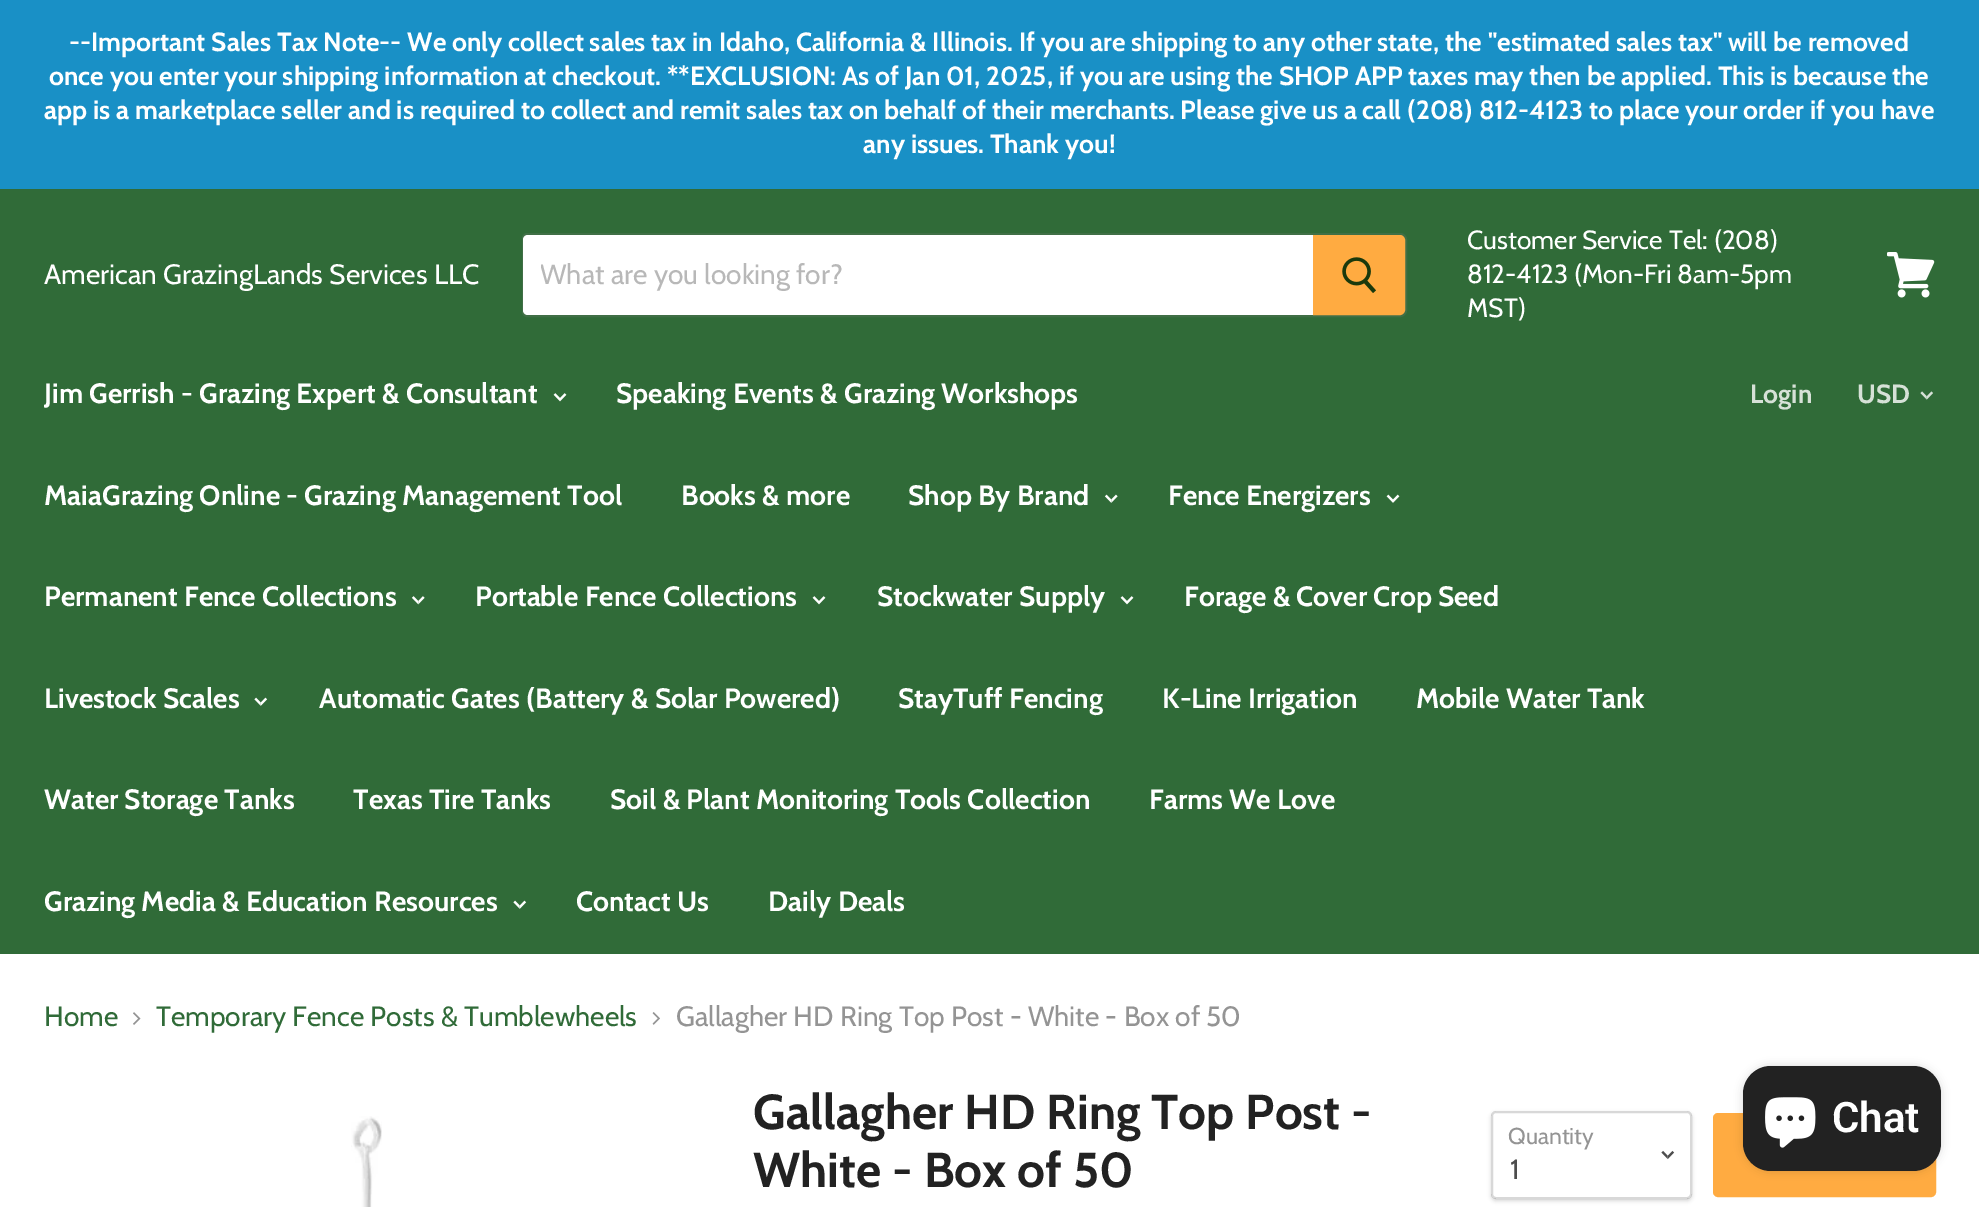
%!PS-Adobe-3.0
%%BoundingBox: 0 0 1979 1207
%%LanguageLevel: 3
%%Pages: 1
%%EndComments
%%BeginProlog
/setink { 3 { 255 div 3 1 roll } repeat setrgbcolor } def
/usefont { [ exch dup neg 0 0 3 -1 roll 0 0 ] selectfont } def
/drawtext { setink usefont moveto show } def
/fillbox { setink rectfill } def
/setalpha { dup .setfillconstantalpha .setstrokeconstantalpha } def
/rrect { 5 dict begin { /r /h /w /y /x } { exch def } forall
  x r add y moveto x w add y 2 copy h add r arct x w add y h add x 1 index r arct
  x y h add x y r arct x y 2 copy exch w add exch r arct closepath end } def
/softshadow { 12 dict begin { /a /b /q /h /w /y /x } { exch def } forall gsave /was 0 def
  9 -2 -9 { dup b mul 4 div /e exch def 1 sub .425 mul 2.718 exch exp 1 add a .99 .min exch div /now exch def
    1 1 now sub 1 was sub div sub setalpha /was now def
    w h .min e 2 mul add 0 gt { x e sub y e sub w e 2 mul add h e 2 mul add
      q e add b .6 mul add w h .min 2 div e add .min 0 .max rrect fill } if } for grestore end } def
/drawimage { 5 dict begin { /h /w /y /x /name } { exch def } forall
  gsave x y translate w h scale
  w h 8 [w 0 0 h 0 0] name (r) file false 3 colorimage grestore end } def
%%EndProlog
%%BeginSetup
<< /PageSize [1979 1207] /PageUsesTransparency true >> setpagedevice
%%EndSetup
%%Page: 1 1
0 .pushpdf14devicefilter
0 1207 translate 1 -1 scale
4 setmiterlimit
0 0 1979 1207 255 255 255 fillbox
0 189 1979 765 48 107 56 fillbox
0 0 1979 189 25 144 198 fillbox
(--Important Sales Tax Note-- We only collect sales tax in Idaho, California & Illinois. If you are shipping to any other state, the "estimated sales tax" will be removed) 69 51 /Cabin-Bold 26.25 255 255 255 drawtext
(once you enter your shipping information at checkout. **EXCLUSION: As of Jan 01, 2025, if you are using the SHOP APP taxes may then be applied. This is because the) 49 85 /Cabin-Bold 26.25 255 255 255 drawtext
(app is a marketplace seller and is required to collect and remit sales tax on behalf of their merchants. Please give us a call \(208\) 812-4123 to place your order if you have) 44 119 /Cabin-Bold 26.25 255 255 255 drawtext
(any issues. Thank you!) 863 153 /Cabin-Bold 26.25 255 255 255 drawtext
(American GrazingLands Services LLC) 44 284 /Cabin-Regular 28 255 255 255 drawtext
0.2 setalpha
127 127 127 setink
2 setlinewidth
527 234 moveto 1400 234 lineto 1403.5 234 1406 236.5 1406 240 curveto 1406 310 lineto 1406 313.5 1403.5 316 1400 316 curveto 527 316 lineto 525 316 523 314 523 312 curveto 523 238 lineto 523 236 525 234 527 234 curveto closepath stroke
1 setalpha
255 255 255 setink
528 235 moveto 1313 235 lineto 1313 315 lineto 528 315 lineto 525 315 523 313 523 310 curveto 523 240 lineto 523 237 525 235 528 235 curveto closepath fill
gsave
541 257 754 34 rectclip
(What are you looking for?) 540 284 /Cabin-Regular 28 184 184 184 drawtext
grestore
255 171 65 setink
1314 236 moveto 1400 236 lineto 1402 236 1404 238 1404 240 curveto 1404 310 lineto 1404 312 1402 314 1400 314 curveto 1314 314 lineto closepath gsave fill grestore
stroke
(assets/img1.rgb) 1342 257 34 36 drawimage
(Customer Service Tel: \(208\)) 1467 249 /Cabin-Regular 26.25 255 255 255 drawtext
(812-4123 \(Mon-Fri 8am-5pm) 1467 283 /Cabin-Regular 26.25 255 255 255 drawtext
(MST\)) 1467 317 /Cabin-Regular 26.25 255 255 255 drawtext
(assets/img2.rgb) 1887 252 48 46 drawimage
(Jim Gerrish - Grazing Expert & Consultant) 44 403 /Cabin-Bold 28 255 255 255 drawtext
(assets/img3.rgb) 553 393 14 9 drawimage
(Speaking Events & Grazing Workshops) 616 403 /Cabin-Bold 28 255 255 255 drawtext
(MaiaGrazing Online - Grazing Management Tool) 44 505 /Cabin-Bold 28 255 255 255 drawtext
(Books & more) 681 505 /Cabin-Bold 28 255 255 255 drawtext
(Shop By Brand) 908 505 /Cabin-Bold 28 255 255 255 drawtext
(assets/img4.rgb) 1104 494 14 9 drawimage
(Fence Energizers) 1168 505 /Cabin-Bold 28 255 255 255 drawtext
(assets/img5.rgb) 1386 494 14 9 drawimage
(Permanent Fence Collections) 44 606 /Cabin-Bold 28 255 255 255 drawtext
(assets/img6.rgb) 411 596 14 9 drawimage
(Portable Fence Collections) 475 606 /Cabin-Bold 28 255 255 255 drawtext
(assets/img3.rgb) 812 596 14 9 drawimage
(Stockwater Supply) 877 606 /Cabin-Bold 28 255 255 255 drawtext
(assets/img3.rgb) 1120 596 14 9 drawimage
(Forage & Cover Crop Seed) 1184 606 /Cabin-Bold 28 255 255 255 drawtext
(Livestock Scales) 44 708 /Cabin-Bold 28 255 255 255 drawtext
(assets/img7.rgb) 254 697 14 9 drawimage
(Automatic Gates \(Battery & Solar Powered\)) 319 708 /Cabin-Bold 28 255 255 255 drawtext
(StayTuff Fencing) 898 708 /Cabin-Bold 28 255 255 255 drawtext
(K-Line Irrigation) 1162 708 /Cabin-Bold 28 255 255 255 drawtext
(Mobile Water Tank) 1416 708 /Cabin-Bold 28 255 255 255 drawtext
(Water Storage Tanks) 44 809 /Cabin-Bold 28 255 255 255 drawtext
(Texas Tire Tanks) 353 809 /Cabin-Bold 28 255 255 255 drawtext
(Soil & Plant Monitoring Tools Collection) 610 809 /Cabin-Bold 28 255 255 255 drawtext
(Farms We Love) 1149 809 /Cabin-Bold 28 255 255 255 drawtext
(Grazing Media & Education Resources) 44 911 /Cabin-Bold 28 255 255 255 drawtext
(assets/img7.rgb) 513 900 14 9 drawimage
(Contact Us) 576 911 /Cabin-Bold 28 255 255 255 drawtext
(Daily Deals) 768 911 /Cabin-Bold 28 255 255 255 drawtext
(Login) 1750 403 /Cabin-Bold 26.25 214 225 215 drawtext
(USD) 1857 403 /Cabin-Bold 26.25 214 225 215 drawtext
(assets/img8.rgb) 1920 391 13 9 drawimage
(Home) 44 1026 /Cabin-Regular 28 48 107 56 drawtext
(assets/img9.rgb) 133 1012 8 13 drawimage
(Temporary Fence Posts & Tumblewheels) 156 1026 /Cabin-Regular 28 48 107 56 drawtext
(assets/img10.rgb) 652 1012 8 13 drawimage
(Gallagher HD Ring Top Post - White - Box of 50) 676 1026 /Cabin-Regular 28 148 148 148 drawtext
(assets/img11.rgb) 351 1116 31 91 drawimage
(Gallagher HD Ring Top Post -) 753 1129 /Cabin-Bold 49 34 34 34 drawtext
(White - Box of 50) 753 1187 /Cabin-Bold 49 34 34 34 drawtext
gsave
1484 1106 moveto 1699 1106 lineto 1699 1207 lineto 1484 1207 lineto closepath 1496 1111 moveto 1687 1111 lineto 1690 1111 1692 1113 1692 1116 curveto 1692 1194 lineto 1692 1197 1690 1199 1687 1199 curveto 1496 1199 lineto 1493 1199 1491 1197 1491 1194 curveto 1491 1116 lineto 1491 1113 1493 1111 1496 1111 curveto closepath eoclip newpath
0 0 0 setink
1491 1113 201 88 5 2 0.15 softshadow
grestore
0.3 setalpha
127 127 127 setink
1492 1112 199 86 4 rrect stroke
1 setalpha
(Quantity) 1508 1144 /Cabin-Regular 23 148 148 148 drawtext
(assets/img12.rgb) 1661 1150 14 10 drawimage
(1) 1510 1179 /Cabin-Regular 28 77 77 77 drawtext
255 171 65 setink
1714 1114 221 82 4 rrect gsave fill grestore
stroke
0 0 0 setink
1743 1066 198 105 28 4.5 0.15 softshadow
34 34 34 setink
1743 1066 198 105 28 rrect fill
(assets/img13.rgb) 1765 1097 51 51 drawimage
(Chat) 1832 1132 /Roboto-SemiBold 42 255 255 255 drawtext
.poppdf14devicefilter showpage
%%EOF
